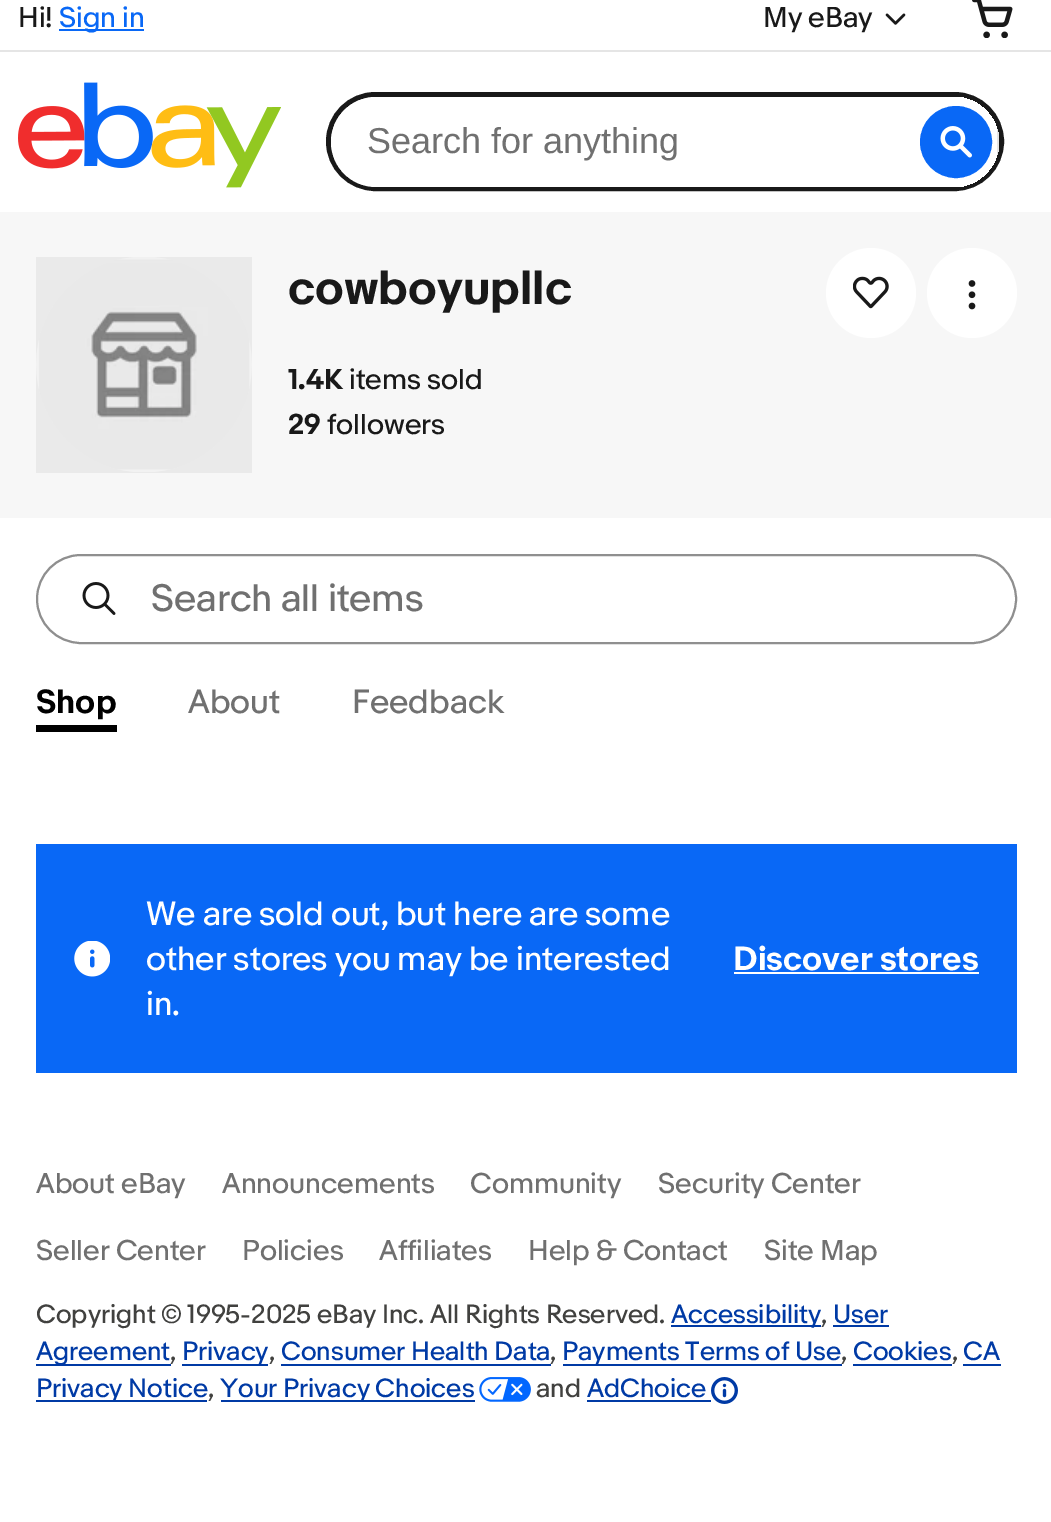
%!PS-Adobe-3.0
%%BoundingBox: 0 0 1051 1522
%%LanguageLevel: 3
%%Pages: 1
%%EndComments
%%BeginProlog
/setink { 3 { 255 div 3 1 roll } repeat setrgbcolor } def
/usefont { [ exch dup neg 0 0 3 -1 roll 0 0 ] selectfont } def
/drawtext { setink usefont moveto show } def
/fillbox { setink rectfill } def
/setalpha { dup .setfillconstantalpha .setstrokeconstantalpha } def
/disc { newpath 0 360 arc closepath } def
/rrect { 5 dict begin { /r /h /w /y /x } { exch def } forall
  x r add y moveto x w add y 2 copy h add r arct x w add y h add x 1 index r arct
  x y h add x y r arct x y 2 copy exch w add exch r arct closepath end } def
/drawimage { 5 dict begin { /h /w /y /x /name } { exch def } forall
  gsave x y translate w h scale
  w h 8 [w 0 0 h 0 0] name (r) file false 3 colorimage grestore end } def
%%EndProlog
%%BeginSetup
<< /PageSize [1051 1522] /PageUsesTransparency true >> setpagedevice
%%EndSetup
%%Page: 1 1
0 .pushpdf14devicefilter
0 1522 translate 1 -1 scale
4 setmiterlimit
0 0 1051 1522 255 255 255 fillbox
(Hi!) 18 27 /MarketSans-Regular 27 25 25 25 drawtext
59 29 85 2 9 104 246 fillbox
(Sign in) 59 27 /MarketSans-Regular 27 9 104 246 drawtext
(My eBay) 763 27 /MarketSans-Regular 27 25 25 25 drawtext
(assets/img1.rgb) 885 13 21 12 drawimage
(assets/img2.rgb) 972 0 41 38 drawimage
(assets/img3.rgb) 18 82 263 106 drawimage
5 setlinewidth
328.5 94.5 673 94 47 rrect stroke
gsave
331 97 668 90 45 rrect clip newpath
997 129 2 26 229 229 229 fillbox
255 255 255 setink
376 97 moveto 997 97 lineto 997 187 lineto 376 187 lineto 351 187 331 167 331 142 curveto 331 117 351 97 376 97 curveto closepath fill
grestore
(Search for anything) 367 153 /LiberationSans-Regular 36 112 112 112 drawtext
9 104 246 setink
956 142 35 disc gsave fill grestore
2 setlinewidth
stroke
(assets/img4.rgb) 940 126 32 32 drawimage
0 50 1051 2 229 229 229 fillbox
0 212 1051 306 247 247 247 fillbox
(assets/img5.rgb) 36 257 216 215 drawimage
0.05 setalpha
36 257 216 216 0 0 0 fillbox
1 setalpha
(cowboyupllc) 288 304 /MarketSans-Bold 45 25 25 25 drawtext
255 255 255 setink
871 293 45 disc fill
(assets/img6.rgb) 853 276 36 33 drawimage
972 293 45 disc fill
(assets/img7.rgb) 968 280 8 30 drawimage
(1.4K) 288 389 /MarketSans-Bold 27 25 25 25 drawtext
(items sold) 349 389 /MarketSans-Regular 27 25 25 25 drawtext
(29) 288 434 /MarketSans-Bold 27 25 25 25 drawtext
(followers) 327 434 /MarketSans-Regular 27 25 25 25 drawtext
143 143 143 setink
37 555 979 88 44 rrect stroke
(assets/img8.rgb) 82 582 34 33 drawimage
(Search all items) 151 611 /MarketSans-Regular 36 112 112 112 drawtext
36 725 81 7 0 0 0 fillbox
(Shop) 36 713 /MarketSans-Bold 31.5 0 0 0 drawtext
(About) 188 713 /MarketSans-Regular 31.5 112 112 112 drawtext
(Feedback) 352 713 /MarketSans-Regular 31.5 112 112 112 drawtext
36 844 981 229 9 104 246 fillbox
(assets/img9.rgb) 74 941 36 36 drawimage
(We are sold out, but here are some) 146 925 /MarketSans-Regular 31.5 255 255 255 drawtext
(other stores you may be interested) 146 970 /MarketSans-Regular 31.5 255 255 255 drawtext
(in.) 146 1015 /MarketSans-Regular 31.5 255 255 255 drawtext
(Discover stores) 733 970 /MarketSans-Bold 31.5 255 255 255 drawtext
734 972 245 2 255 255 255 fillbox
(About eBay) 36 1193 /MarketSans-Regular 27 112 112 112 drawtext
(Announcements) 222 1193 /MarketSans-Regular 27 112 112 112 drawtext
(Community) 470 1193 /MarketSans-Regular 27 112 112 112 drawtext
(Security Center) 658 1193 /MarketSans-Regular 27 112 112 112 drawtext
(Seller Center) 36 1260 /MarketSans-Regular 27 112 112 112 drawtext
(Policies) 242 1260 /MarketSans-Regular 27 112 112 112 drawtext
(Affiliates) 379 1260 /MarketSans-Regular 27 112 112 112 drawtext
(Help & Contact) 528 1260 /MarketSans-Regular 27 112 112 112 drawtext
(Site Map) 764 1260 /MarketSans-Regular 27 112 112 112 drawtext
(Copyright © 1995-2025 eBay Inc. All Rights Reserved.) 36 1323 /MarketSans-Regular 24.75 65 65 63 drawtext
671 1325 150 2 0 58 165 fillbox
(Accessibility) 671 1323 /MarketSans-Regular 24.75 0 58 165 drawtext
(,) 821 1323 /MarketSans-Regular 24.75 65 65 63 drawtext
(User) 833 1323 /MarketSans-Regular 24.75 0 58 165 drawtext
833 1325 56 2 0 58 165 fillbox
36 1364 135 2 0 58 165 fillbox
(Agreement) 36 1360 /MarketSans-Regular 24.75 0 58 165 drawtext
(,) 170 1360 /MarketSans-Regular 24.75 65 65 63 drawtext
182 1364 86 2 0 58 165 fillbox
(Privacy) 182 1360 /MarketSans-Regular 24.75 0 58 165 drawtext
(,) 269 1360 /MarketSans-Regular 24.75 65 65 63 drawtext
(Consumer Health Data) 281 1360 /MarketSans-Regular 24.75 0 58 165 drawtext
281 1364 270 2 0 58 165 fillbox
(,) 550 1360 /MarketSans-Regular 24.75 65 65 63 drawtext
563 1364 279 2 0 58 165 fillbox
(Payments Terms of Use) 562 1360 /MarketSans-Regular 24.75 0 58 165 drawtext
(,) 841 1360 /MarketSans-Regular 24.75 65 65 63 drawtext
(Cookies) 853 1360 /MarketSans-Regular 24.75 0 58 165 drawtext
853 1364 99 2 0 58 165 fillbox
(,) 952 1360 /MarketSans-Regular 24.75 65 65 63 drawtext
(CA) 963 1360 /MarketSans-Regular 24.75 0 58 165 drawtext
963 1364 38 2 0 58 165 fillbox
36 1400 171 2 0 58 165 fillbox
(Privacy Notice) 36 1397 /MarketSans-Regular 24.75 0 58 165 drawtext
(,) 208 1397 /MarketSans-Regular 24.75 65 65 63 drawtext
221 1400 254 2 0 58 165 fillbox
(Your Privacy Choices) 220 1397 /MarketSans-Regular 24.75 0 58 165 drawtext
(assets/img10.rgb) 479 1377 52 25 drawimage
(and) 536 1397 /MarketSans-Regular 24.75 65 65 63 drawtext
(AdChoice) 587 1397 /MarketSans-Regular 24.75 0 58 165 drawtext
587 1400 124 2 0 58 165 fillbox
(assets/img11.rgb) 711 1377 27 27 drawimage
.poppdf14devicefilter showpage
%%EOF
